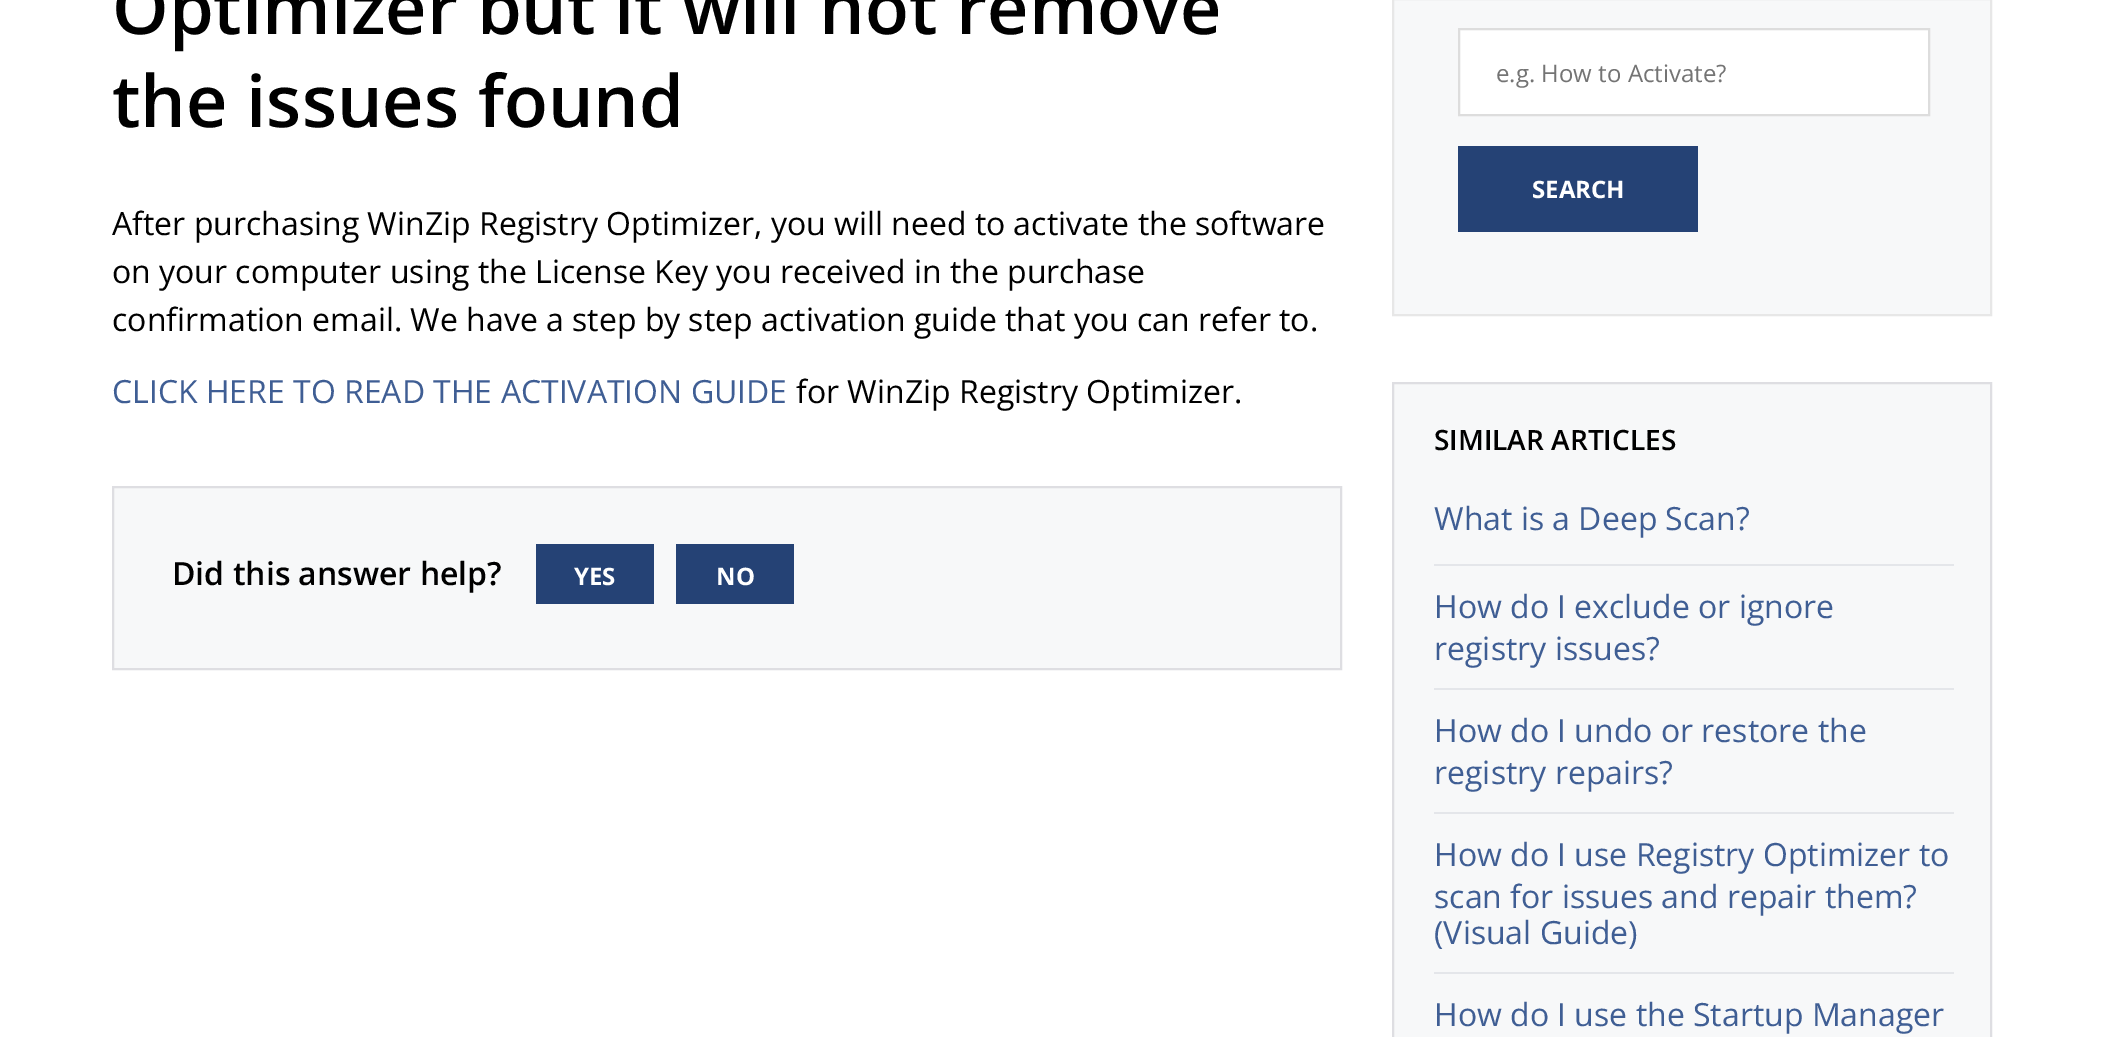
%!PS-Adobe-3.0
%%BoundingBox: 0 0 2104 1037
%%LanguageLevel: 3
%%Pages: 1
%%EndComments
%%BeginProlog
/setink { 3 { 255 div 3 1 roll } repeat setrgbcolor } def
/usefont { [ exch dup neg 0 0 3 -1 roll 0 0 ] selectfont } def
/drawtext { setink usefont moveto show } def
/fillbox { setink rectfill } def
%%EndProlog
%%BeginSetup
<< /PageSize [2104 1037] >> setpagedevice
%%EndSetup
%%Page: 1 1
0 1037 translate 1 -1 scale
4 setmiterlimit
0 0 2104 1037 255 255 255 fillbox
(Optimizer but it will not remove) 112 34 /OpenSans-SemiBold 72 0 0 0 drawtext
(the issues found) 112 127 /OpenSans-SemiBold 72 0 0 0 drawtext
(After purchasing WinZip Registry Optimizer, you will need to activate the software) 112 235 /OpenSans-Regular 32 0 0 0 drawtext
(on your computer using the License Key you received in the purchase) 112 283 /OpenSans-Regular 32 0 0 0 drawtext
(confirmation email. We have a step by step activation guide that you can refer to.) 112 331 /OpenSans-Regular 32 0 0 0 drawtext
(CLICK HERE TO READ THE ACTIVATION GUIDE) 112 403 /OpenSans-Regular 32 63 94 148 drawtext
(for WinZip Registry Optimizer.) 796 403 /OpenSans-Regular 32 0 0 0 drawtext
247 248 249 setink
113 487 moveto 1341 487 lineto 1341 669 lineto 113 669 lineto closepath gsave fill grestore
222 222 226 setink
2 setlinewidth
stroke
(Did this answer help?) 172 585 /OpenSans-SemiBold 32 0 0 0 drawtext
536 544 118 60 37 66 117 fillbox
(YES) 574 585 /OpenSans-Bold 24 255 255 255 drawtext
676 544 118 60 37 66 117 fillbox
(NO) 716 585 /OpenSans-Bold 24 255 255 255 drawtext
247 248 249 setink
1393 -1 moveto 1991 -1 lineto 1991 315 lineto 1393 315 lineto closepath gsave fill grestore
231 231 231 setink
stroke
255 255 255 setink
1459 29 moveto 1929 29 lineto 1929 115 lineto 1459 115 lineto closepath gsave fill grestore
221 221 221 setink
stroke
(e.g. How to Activate?) 1496 82 /OpenSans-Regular 24 116 116 116 drawtext
1458 146 240 86 37 66 117 fillbox
(SEARCH) 1532 198 /OpenSans-Bold 24 255 255 255 drawtext
247 248 249 setink
1393 383 moveto 1991 383 lineto 1991 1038 lineto 1393 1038 lineto closepath gsave fill grestore
222 222 226 setink
stroke
(SIMILAR ARTICLES) 1434 450 /OpenSans-SemiBold 28 0 0 0 drawtext
(What is a Deep Scan?) 1434 530 /OpenSans-Regular 32 63 94 148 drawtext
1434 564 520 2 228 230 234 fillbox
(How do I exclude or ignore) 1434 618 /OpenSans-Regular 32 63 94 148 drawtext
(registry issues?) 1434 660 /OpenSans-Regular 32 63 94 148 drawtext
1434 688 520 2 228 230 234 fillbox
(How do I undo or restore the) 1434 742 /OpenSans-Regular 32 63 94 148 drawtext
(registry repairs?) 1434 784 /OpenSans-Regular 32 63 94 148 drawtext
1434 812 520 2 228 230 234 fillbox
(How do I use Registry Optimizer to) 1434 866 /OpenSans-Regular 32 63 94 148 drawtext
(scan for issues and repair them?) 1434 908 /OpenSans-Regular 32 63 94 148 drawtext
(\(Visual Guide\)) 1434 944 /OpenSans-Regular 32 63 94 148 drawtext
1434 972 520 2 228 230 234 fillbox
(How do I use the Startup Manager) 1434 1026 /OpenSans-Regular 32 63 94 148 drawtext
showpage
%%EOF
